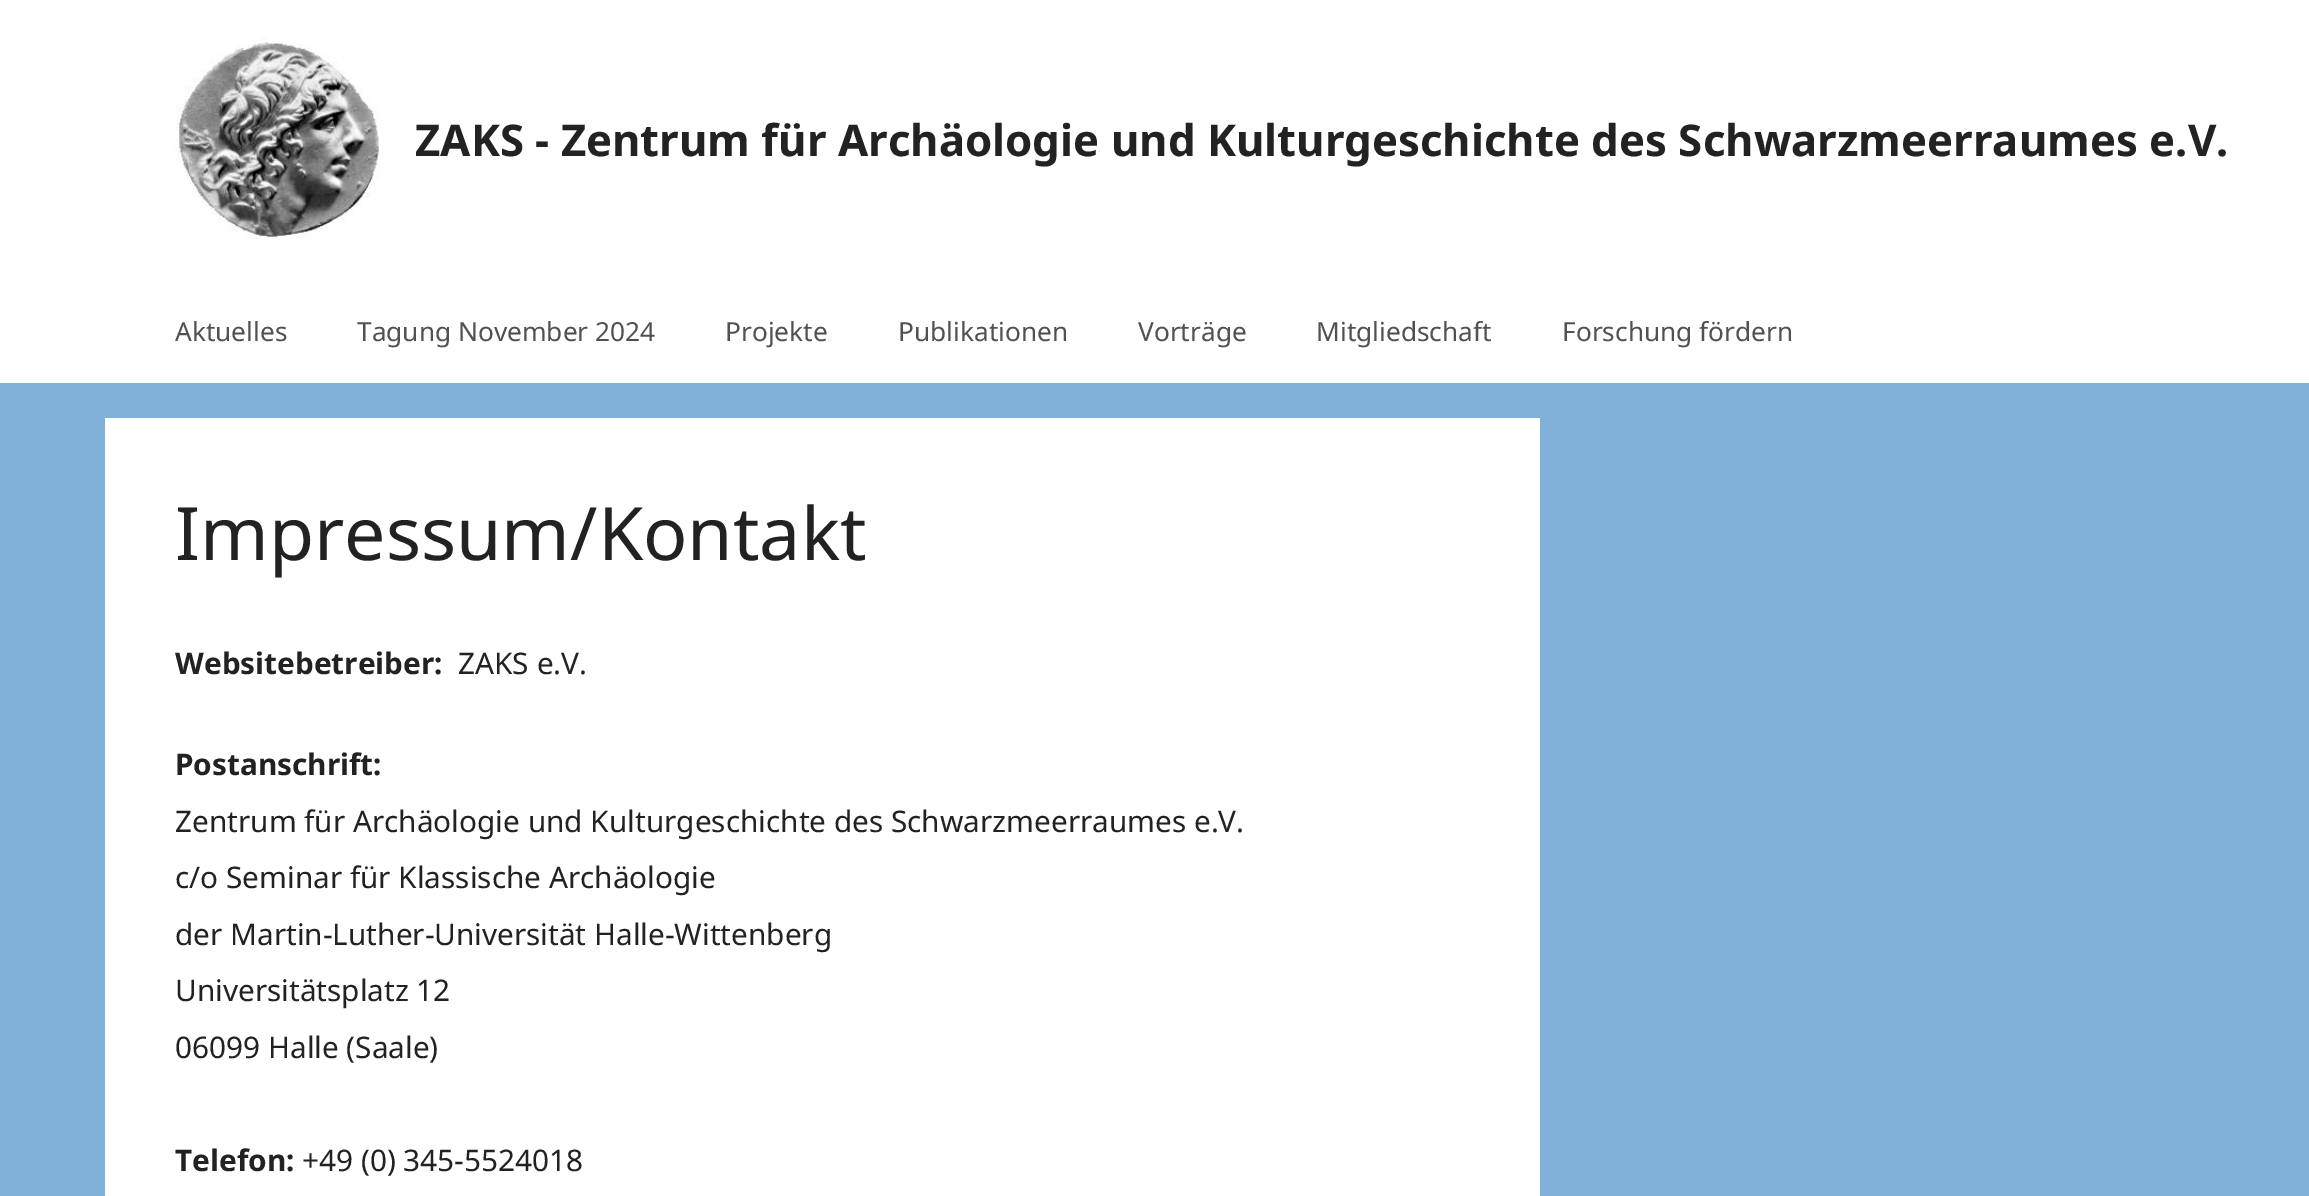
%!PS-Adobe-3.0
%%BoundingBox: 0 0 2309 1196
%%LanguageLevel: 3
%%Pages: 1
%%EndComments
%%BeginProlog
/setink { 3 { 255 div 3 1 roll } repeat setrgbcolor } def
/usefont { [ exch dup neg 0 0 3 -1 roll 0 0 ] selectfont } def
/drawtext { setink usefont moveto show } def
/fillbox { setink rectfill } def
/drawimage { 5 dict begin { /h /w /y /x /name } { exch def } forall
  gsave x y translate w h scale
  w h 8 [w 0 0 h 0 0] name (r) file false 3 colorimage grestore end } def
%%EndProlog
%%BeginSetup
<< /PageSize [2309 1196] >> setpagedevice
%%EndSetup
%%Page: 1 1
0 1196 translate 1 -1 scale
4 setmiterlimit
0 0 2309 1196 128 177 214 fillbox
0 0 2309 383 255 255 255 fillbox
(assets/img1.rgb) 175 36 205 204 drawimage
(ZAKS - Zentrum für Archäologie und Kulturgeschichte des Schwarzmeerraumes e.V.) 415 156 /NotoSans-Bold 43.75 34 34 34 drawtext
(Aktuelles) 175 341 /NotoSans-Regular 26.25 81 81 81 drawtext
(Tagung November 2024) 357 341 /NotoSans-Regular 26.25 81 81 81 drawtext
(Projekte) 725 341 /NotoSans-Regular 26.25 81 81 81 drawtext
(Publikationen) 898 341 /NotoSans-Regular 26.25 81 81 81 drawtext
(Vorträge) 1138 341 /NotoSans-Regular 26.25 81 81 81 drawtext
(Mitgliedschaft) 1316 341 /NotoSans-Regular 26.25 81 81 81 drawtext
(Forschung fördern) 1562 341 /NotoSans-Regular 26.25 81 81 81 drawtext
105 418 1435 778 255 255 255 fillbox
(Impressum/Kontakt) 175 560 /NotoSans-Regular 73.5 34 34 34 drawtext
(Websitebetreiber:) 175 674 /NotoSans-Bold 29.75 34 34 34 drawtext
(ZAKS e.V.) 458 674 /NotoSans-Regular 29.75 34 34 34 drawtext
(Postanschrift:) 175 775 /NotoSans-Bold 29.75 34 34 34 drawtext
(Zentrum für Archäologie und Kulturgeschichte des Schwarzmeerraumes e.V.) 175 832 /NotoSans-Regular 29.75 34 34 34 drawtext
(c/o Seminar für Klassische Archäologie) 175 888 /NotoSans-Regular 29.75 34 34 34 drawtext
(der Martin-Luther-Universität Halle-Wittenberg) 175 945 /NotoSans-Regular 29.75 34 34 34 drawtext
(Universitätsplatz 12) 175 1001 /NotoSans-Regular 29.75 34 34 34 drawtext
(06099 Halle \(Saale\)) 175 1058 /NotoSans-Regular 29.75 34 34 34 drawtext
(Telefon:) 175 1171 /NotoSans-Bold 29.75 34 34 34 drawtext
(+49 \(0\) 345-5524018) 302 1171 /NotoSans-Regular 29.75 34 34 34 drawtext
showpage
%%EOF
